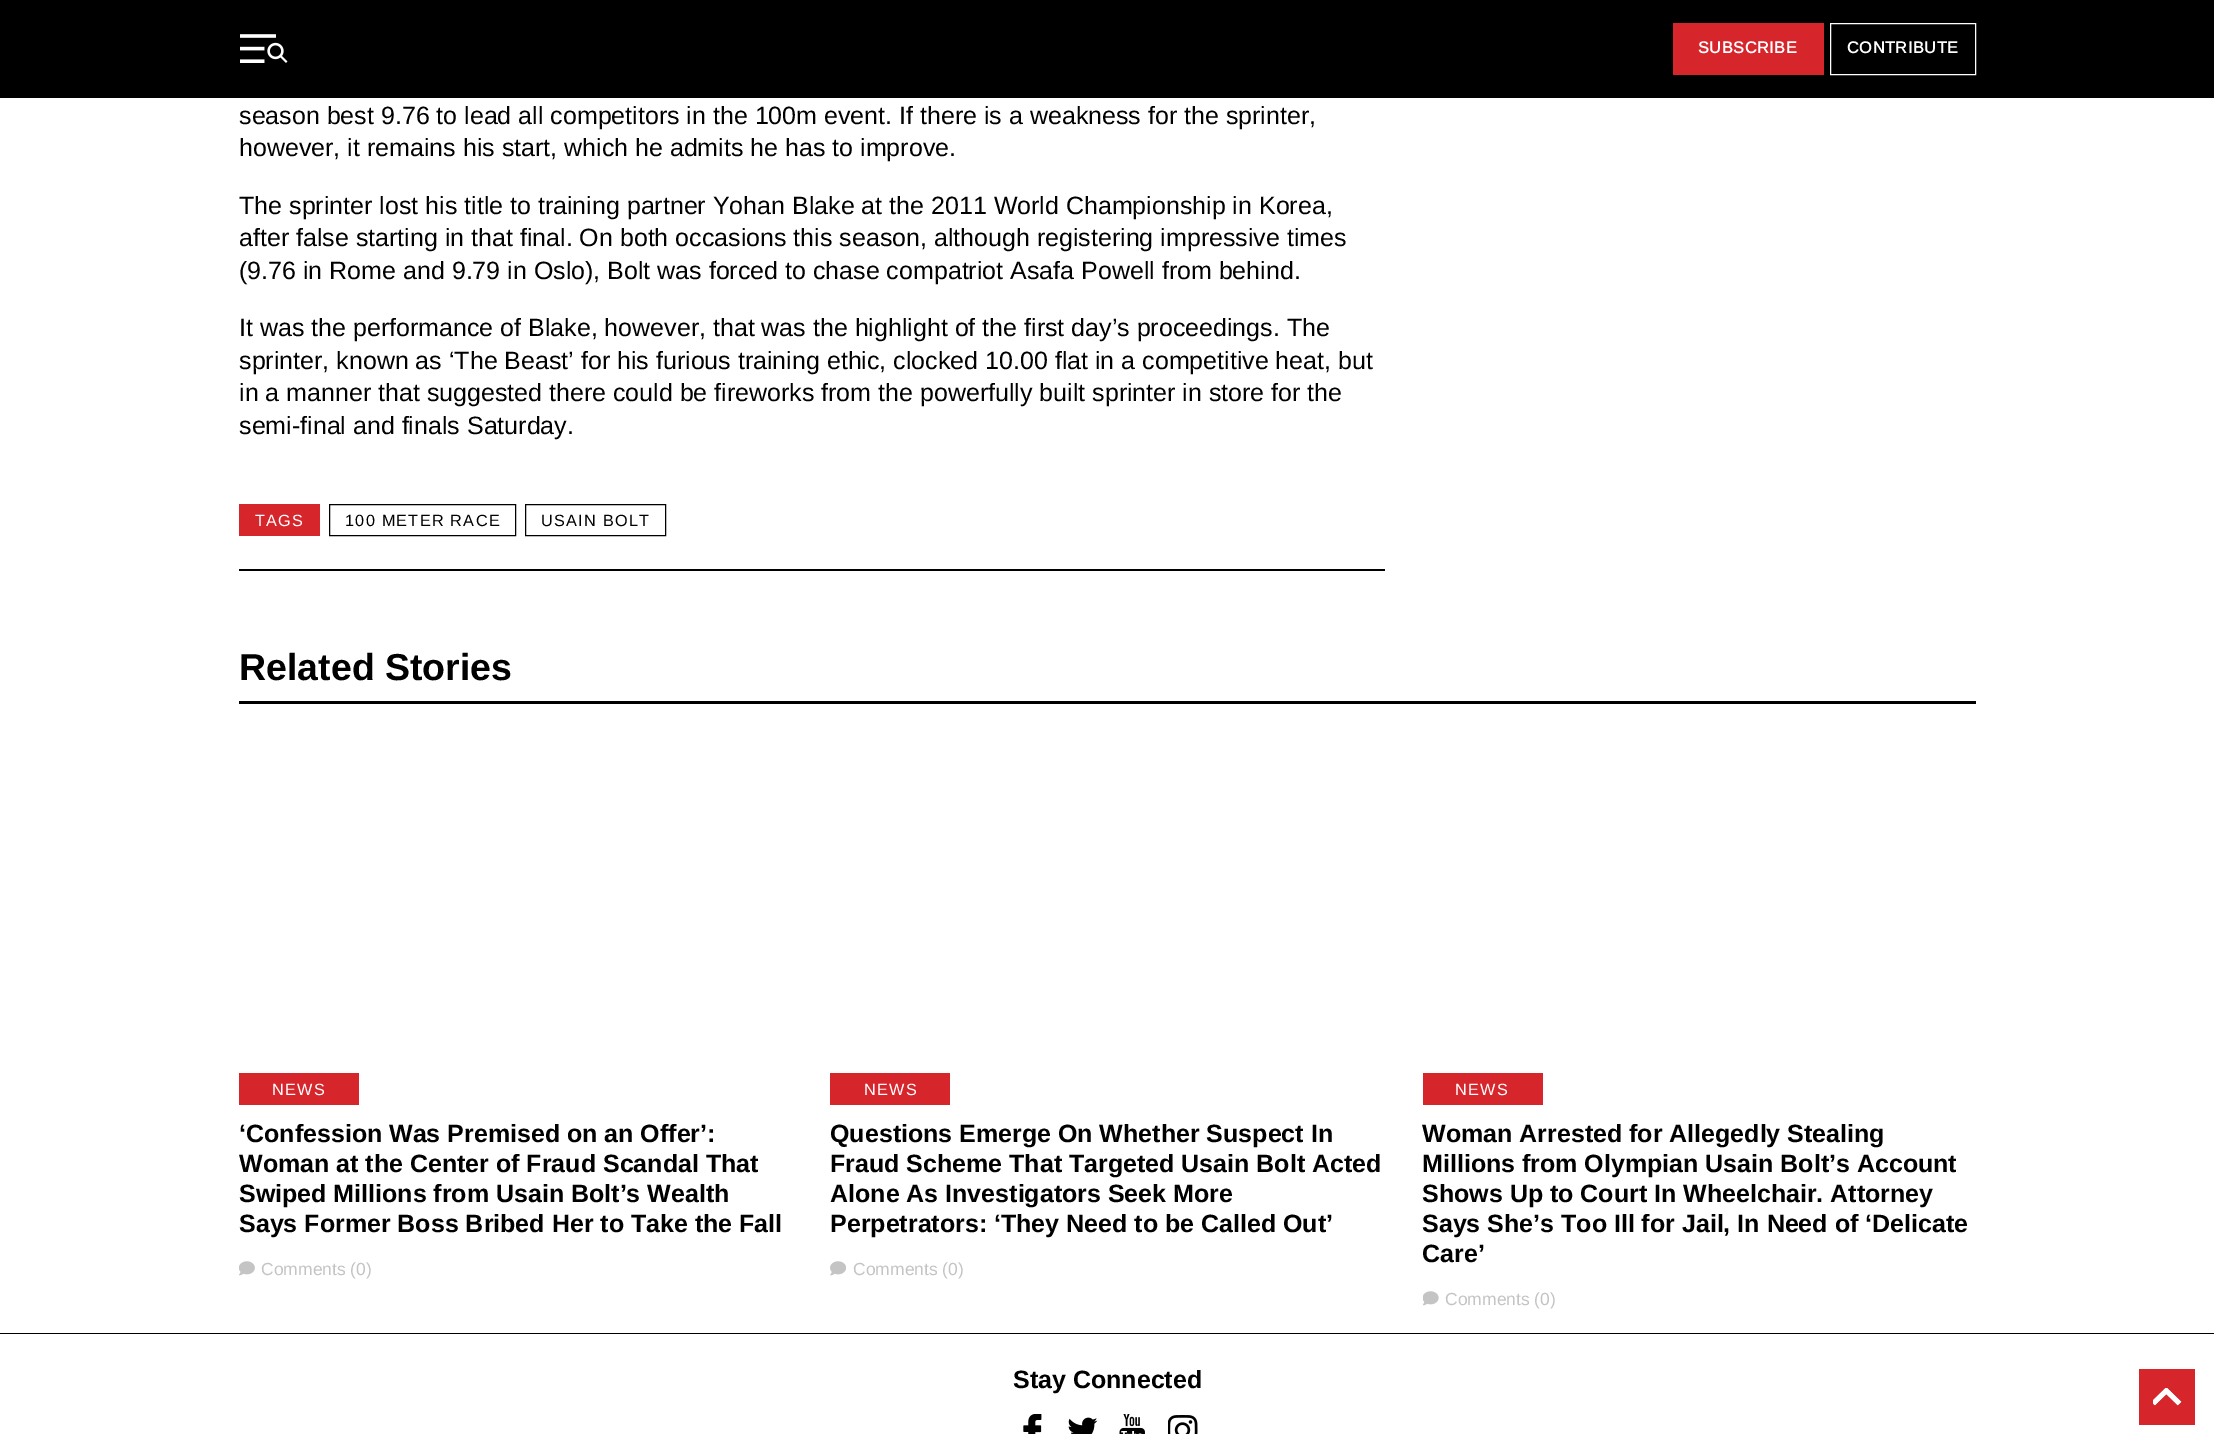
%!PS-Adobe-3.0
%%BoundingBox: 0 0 2214 1434
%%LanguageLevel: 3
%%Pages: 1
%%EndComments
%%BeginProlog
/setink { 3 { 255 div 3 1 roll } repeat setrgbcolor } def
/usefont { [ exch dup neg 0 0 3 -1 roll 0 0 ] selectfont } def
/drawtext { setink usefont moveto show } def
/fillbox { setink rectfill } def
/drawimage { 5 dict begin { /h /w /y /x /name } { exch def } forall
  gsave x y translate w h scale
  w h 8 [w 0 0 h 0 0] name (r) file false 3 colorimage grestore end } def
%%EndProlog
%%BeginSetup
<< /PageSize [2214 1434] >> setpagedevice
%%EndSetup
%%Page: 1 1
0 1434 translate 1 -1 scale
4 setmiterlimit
0 0 2214 1434 255 255 255 fillbox
0 0 2214 98 0 0 0 fillbox
(assets/img1.rgb) 240 34 48 29 drawimage
1673 23 151 52 214 37 43 fillbox
/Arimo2-Bold 16.25 usefont
255 255 255 setink
1698 53 moveto 0.6 0 (SUBSCRIBE) ashow
1830.5 23.5 145 51 rectstroke
1847 53 moveto 0.6 0 (CONTRIBUTE) ashow
239 569 1146 2 0 0 0 fillbox
(season best 9.76 to lead all competitors in the 100m event. If there is a weakness for the sprinter,) 239 124 /Arimo-Regular 25 0 0 0 drawtext
(however, it remains his start, which he admits he has to improve.) 239 156 /Arimo-Regular 25 0 0 0 drawtext
(The sprinter lost his title to training partner Yohan Blake at the 2011 World Championship in Korea,) 239 214 /Arimo-Regular 25 0 0 0 drawtext
(after false starting in that final. On both occasions this season, although registering impressive times) 239 246 /Arimo-Regular 25 0 0 0 drawtext
(\(9.76 in Rome and 9.79 in Oslo\), Bolt was forced to chase compatriot Asafa Powell from behind.) 239 279 /Arimo-Regular 25 0 0 0 drawtext
(It was the performance of Blake, however, that was the highlight of the first day’s proceedings. The) 239 336 /Arimo-Regular 25 0 0 0 drawtext
(sprinter, known as ‘The Beast’ for his furious training ethic, clocked 10.00 flat in a competitive heat, but) 239 369 /Arimo-Regular 25 0 0 0 drawtext
(in a manner that suggested there could be fireworks from the powerfully built sprinter in store for the) 239 401 /Arimo-Regular 25 0 0 0 drawtext
(semi-final and finals Saturday.) 239 434 /Arimo-Regular 25 0 0 0 drawtext
239 504 81 32 214 37 43 fillbox
/Arimo-Regular 16.25 usefont
255 255 255 setink
255 526 moveto 1.25 0 (TAGS) ashow
0 0 0 setink
329.5 504.5 186 31 rectstroke
345 526 moveto 1.25 0 (100 METER RACE) ashow
525.5 504.5 140 31 rectstroke
541 526 moveto 1.25 0 (USAIN BOLT) ashow
(Related Stories) 239 680 /Arimo-Bold 37.5 0 0 0 drawtext
239 701 1737 3 0 0 0 fillbox
239 1073 120 32 214 37 43 fillbox
/Arimo-Regular 16.25 usefont
255 255 255 setink
272 1095 moveto 1.25 0 (NEWS) ashow
(‘Confession Was Premised on an Offer’:) 239 1142 /Arimo-Bold 25 0 0 0 drawtext
(Woman at the Center of Fraud Scandal That) 239 1172 /Arimo-Bold 25 0 0 0 drawtext
(Swiped Millions from Usain Bolt’s Wealth) 239 1202 /Arimo-Bold 25 0 0 0 drawtext
(Says Former Boss Bribed Her to Take the Fall) 239 1232 /Arimo-Bold 25 0 0 0 drawtext
(assets/img2.rgb) 239 1261 16 15 drawimage
(Comments \(0\)) 261 1275 /Arimo-Regular 17.5 196 196 196 drawtext
830 1073 120 32 214 37 43 fillbox
/Arimo-Regular 16.25 usefont
255 255 255 setink
864 1095 moveto 1.25 0 (NEWS) ashow
(Questions Emerge On Whether Suspect In) 830 1142 /Arimo-Bold 25 0 0 0 drawtext
(Fraud Scheme That Targeted Usain Bolt Acted) 830 1172 /Arimo-Bold 25 0 0 0 drawtext
(Alone As Investigators Seek More) 830 1202 /Arimo-Bold 25 0 0 0 drawtext
(Perpetrators: ‘They Need to be Called Out’) 830 1232 /Arimo-Bold 25 0 0 0 drawtext
(assets/img3.rgb) 830 1261 16 15 drawimage
(Comments \(0\)) 853 1275 /Arimo-Regular 17.5 196 196 196 drawtext
1423 1073 120 32 214 37 43 fillbox
/Arimo-Regular 16.25 usefont
255 255 255 setink
1455 1095 moveto 1.25 0 (NEWS) ashow
(Woman Arrested for Allegedly Stealing) 1422 1142 /Arimo-Bold 25 0 0 0 drawtext
(Millions from Olympian Usain Bolt’s Account) 1422 1172 /Arimo-Bold 25 0 0 0 drawtext
(Shows Up to Court In Wheelchair. Attorney) 1422 1202 /Arimo-Bold 25 0 0 0 drawtext
(Says She’s Too Ill for Jail, In Need of ‘Delicate) 1422 1232 /Arimo-Bold 25 0 0 0 drawtext
(Care’) 1422 1262 /Arimo-Bold 25 0 0 0 drawtext
(assets/img4.rgb) 1423 1291 16 15 drawimage
(Comments \(0\)) 1445 1305 /Arimo-Regular 17.5 196 196 196 drawtext
0 1333 2214 1 0 0 0 fillbox
(Stay Connected) 1013 1388 /Arimo-Bold 25 0 0 0 drawtext
(assets/img5.rgb) 1023 1414 19 20 drawimage
(assets/img6.rgb) 1068 1417 30 17 drawimage
(assets/img7.rgb) 1119 1414 26 20 drawimage
(assets/img8.rgb) 1168 1415 30 19 drawimage
2139 1369 56 56 214 37 43 fillbox
(assets/img9.rgb) 2153 1388 29 18 drawimage
showpage
%%EOF
